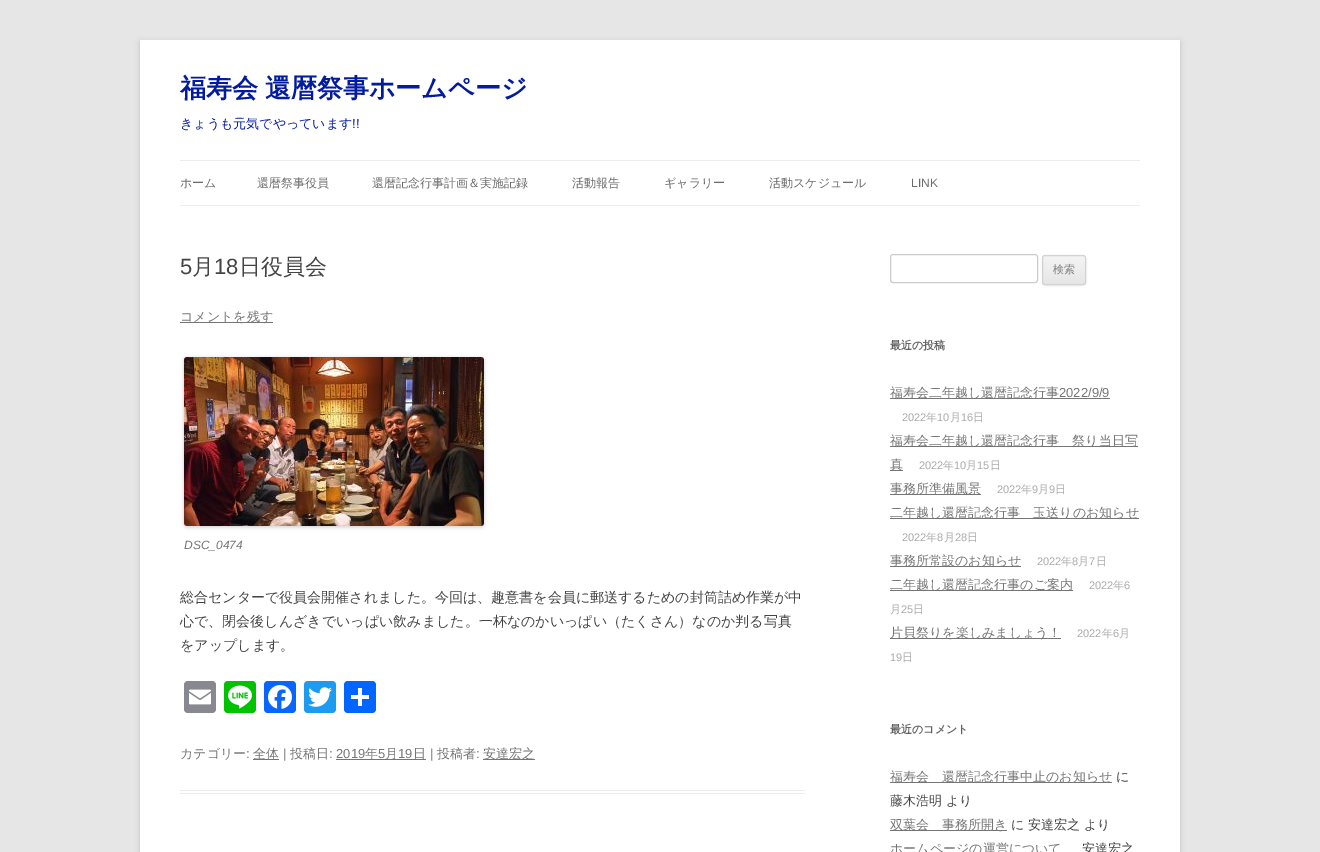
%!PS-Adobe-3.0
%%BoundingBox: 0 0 1320 852
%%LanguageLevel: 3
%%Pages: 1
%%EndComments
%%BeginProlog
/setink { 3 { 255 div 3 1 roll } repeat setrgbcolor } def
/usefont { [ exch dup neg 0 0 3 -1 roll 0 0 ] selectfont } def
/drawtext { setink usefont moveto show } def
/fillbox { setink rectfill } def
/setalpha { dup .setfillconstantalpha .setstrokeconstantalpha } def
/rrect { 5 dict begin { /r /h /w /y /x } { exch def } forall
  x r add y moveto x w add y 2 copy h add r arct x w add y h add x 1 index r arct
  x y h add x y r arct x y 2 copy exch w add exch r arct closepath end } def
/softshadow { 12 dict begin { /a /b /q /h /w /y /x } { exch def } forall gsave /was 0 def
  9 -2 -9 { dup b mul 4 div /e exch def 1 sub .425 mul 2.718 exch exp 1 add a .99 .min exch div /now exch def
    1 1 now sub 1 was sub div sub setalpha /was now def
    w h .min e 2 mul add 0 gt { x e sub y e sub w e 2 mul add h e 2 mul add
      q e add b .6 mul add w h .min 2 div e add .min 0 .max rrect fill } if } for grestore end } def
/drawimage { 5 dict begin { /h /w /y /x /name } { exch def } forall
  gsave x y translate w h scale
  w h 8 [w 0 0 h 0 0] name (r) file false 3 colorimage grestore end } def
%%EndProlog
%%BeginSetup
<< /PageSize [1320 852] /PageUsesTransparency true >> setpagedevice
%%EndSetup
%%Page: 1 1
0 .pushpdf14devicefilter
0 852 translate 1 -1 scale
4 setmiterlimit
0 0 1320 852 230 230 230 fillbox
100 100 100 setink
140 42 1040 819 0 3 0.3 softshadow
140 40 1040 812 255 255 255 fillbox
/WenQuanYiZenHei-Bold 26 usefont
3 28 158 setink
180 97 moveto -1 0 32 (福寿会 還暦祭事ホームページ) widthshow
(きょうも元気でやっています) 180 128 /WenQuanYiZenHei-Medium 13 3 28 158 drawtext
(!!) 352 128 /LiberationSans-Regular 13 3 28 158 drawtext
180 160 960 1 237 237 237 fillbox
180 205 960 1 237 237 237 fillbox
(ホーム) 180 187 /WenQuanYiZenHei-Medium 12 106 106 106 drawtext
(還暦祭事役員) 257 187 /WenQuanYiZenHei-Medium 12 106 106 106 drawtext
(還暦記念行事計画＆実施記録) 372 187 /WenQuanYiZenHei-Medium 12 106 106 106 drawtext
(活動報告) 572 187 /WenQuanYiZenHei-Medium 12 106 106 106 drawtext
(ギャラリー) 664 187 /WenQuanYiZenHei-Medium 12 106 106 106 drawtext
(活動スケジュール) 769 187 /WenQuanYiZenHei-Medium 12 106 106 106 drawtext
(LINK) 911 187 /LiberationSans-Regular 12 106 106 106 drawtext
180 790 625 1 237 237 237 fillbox
180 793 625 1 237 237 237 fillbox
(5) 180 274 /LiberationSans-Regular 22 68 68 68 drawtext
(月) 192 274 /WenQuanYiZenHei-Medium 22 68 68 68 drawtext
(18) 214 274 /LiberationSans-Regular 22 68 68 68 drawtext
(日役員会) 239 274 /WenQuanYiZenHei-Medium 22 68 68 68 drawtext
180 322 93 1 117 117 117 fillbox
(コメントを残す) 180 321 /WenQuanYiZenHei-Medium 13 117 117 117 drawtext
0 0 0 setink
184 358 300 169 3 2 0.2 softshadow
(assets/img1.rgb) 184 357 300 169 drawimage
(DSC_0474) 184 549 /LiberationSans-Italic 12 117 117 117 drawtext
(総合センターで役員会開催されました。今回は、趣意書を会員に郵送するための封筒詰め作業が中) 180 602 /WenQuanYiZenHei-Medium 14 68 68 68 drawtext
(心で、閉会後しんざきでいっぱい飲みました。一杯なのかいっぱい（たくさん）なのか判る写真) 180 626 /WenQuanYiZenHei-Medium 14 68 68 68 drawtext
(をアップします。) 180 650 /WenQuanYiZenHei-Medium 14 68 68 68 drawtext
136 137 144 setink
184 681 32 32 4 rrect fill
(assets/img2.rgb) 189 689 22 16 drawimage
0 195 0 setink
224 681 32 32 4 rrect fill
(assets/img3.rgb) 228 685 24 24 drawimage
8 102 255 setink
264 681 32 32 4 rrect fill
(assets/img4.rgb) 268 685 24 24 drawimage
29 155 240 setink
304 681 32 32 4 rrect fill
(assets/img5.rgb) 308 687 24 20 drawimage
1 102 255 setink
344 681 32 32 4 rrect fill
358 688 4 18 255 255 255 fillbox
351 695 18 4 255 255 255 fillbox
(カテゴリー) 180 758 /WenQuanYiZenHei-Medium 13 117 117 117 drawtext
(:) 246 758 /LiberationSans-Regular 13 117 117 117 drawtext
253 759 26 1 117 117 117 fillbox
(全体) 253 758 /WenQuanYiZenHei-Medium 13 117 117 117 drawtext
(|) 283 758 /LiberationSans-Regular 13 117 117 117 drawtext
(投稿日) 290 758 /WenQuanYiZenHei-Medium 13 117 117 117 drawtext
(: 2019) 329 758 /LiberationSans-Regular 13 117 117 117 drawtext
336 759 90 1 117 117 117 fillbox
(年) 365 758 /WenQuanYiZenHei-Medium 13 117 117 117 drawtext
(5) 378 758 /LiberationSans-Regular 13 117 117 117 drawtext
(月) 385 758 /WenQuanYiZenHei-Medium 13 117 117 117 drawtext
(19) 398 758 /LiberationSans-Regular 13 117 117 117 drawtext
(日) 413 758 /WenQuanYiZenHei-Medium 13 117 117 117 drawtext
(|) 430 758 /LiberationSans-Regular 13 117 117 117 drawtext
(投稿者) 437 758 /WenQuanYiZenHei-Medium 13 117 117 117 drawtext
(:) 476 758 /LiberationSans-Regular 13 117 117 117 drawtext
483 759 52 1 117 117 117 fillbox
(安達宏之) 483 758 /WenQuanYiZenHei-Medium 13 117 117 117 drawtext
204 204 204 setink
890.5 254.5 147 28 2.5 rrect stroke
64 64 64 setink
1042 256 44 30 3 1 0.1 softshadow
gsave
1042 255 44 30 3 rrect clip newpath
gsave 1042 256 moveto 1086 256 lineto 1086 284 lineto 1042 284 lineto closepath clip newpath
<< /ShadingType 2 /ColorSpace /DeviceRGB /Coords [1064 256 1064 284] /Extend [true true] /Function << /FunctionType 2 /Domain [0 1] /C0 [0.957 0.957 0.957] /C1 [0.902 0.902 0.902] /N 1 >> >> shfill grestore
grestore
210 210 210 setink
1042.5 255.5 43 29 2.5 rrect stroke
(検索) 1053 273 /WenQuanYiZenHei-Medium 11 124 124 124 drawtext
(最近の投稿) 890 349 /WenQuanYiZenHei-Bold 11 99 99 99 drawtext
890 398 220 1 117 117 117 fillbox
(福寿会二年越し還暦記念行事) 890 397 /WenQuanYiZenHei-Medium 13 117 117 117 drawtext
(2022/9/9) 1059 397 /LiberationSans-Regular 13 117 117 117 drawtext
(2022) 902 421 /LiberationSans-Regular 11 170 170 170 drawtext
(年) 926 421 /WenQuanYiZenHei-Medium 11 170 170 170 drawtext
(10) 937 421 /LiberationSans-Regular 11 170 170 170 drawtext
(月) 950 421 /WenQuanYiZenHei-Medium 11 170 170 170 drawtext
(16) 961 421 /LiberationSans-Regular 11 170 170 170 drawtext
(日) 973 421 /WenQuanYiZenHei-Medium 11 170 170 170 drawtext
890 446 248 1 117 117 117 fillbox
(福寿会二年越し還暦記念行事　祭り当日写) 890 445 /WenQuanYiZenHei-Medium 13 117 117 117 drawtext
890 470 13 1 117 117 117 fillbox
(真) 890 469 /WenQuanYiZenHei-Medium 13 117 117 117 drawtext
(2022) 919 469 /LiberationSans-Regular 11 170 170 170 drawtext
(年) 943 469 /WenQuanYiZenHei-Medium 11 170 170 170 drawtext
(10) 954 469 /LiberationSans-Regular 11 170 170 170 drawtext
(月) 966 469 /WenQuanYiZenHei-Medium 11 170 170 170 drawtext
(15) 977 469 /LiberationSans-Regular 11 170 170 170 drawtext
(日) 990 469 /WenQuanYiZenHei-Medium 11 170 170 170 drawtext
890 494 91 1 117 117 117 fillbox
(事務所準備風景) 890 493 /WenQuanYiZenHei-Medium 13 117 117 117 drawtext
(2022) 997 493 /LiberationSans-Regular 11 170 170 170 drawtext
(年) 1021 493 /WenQuanYiZenHei-Medium 11 170 170 170 drawtext
(9) 1032 493 /LiberationSans-Regular 11 170 170 170 drawtext
(月) 1038 493 /WenQuanYiZenHei-Medium 11 170 170 170 drawtext
(9) 1049 493 /LiberationSans-Regular 11 170 170 170 drawtext
(日) 1055 493 /WenQuanYiZenHei-Medium 11 170 170 170 drawtext
890 518 249 1 117 117 117 fillbox
(二年越し還暦記念行事　玉送りのお知らせ) 890 517 /WenQuanYiZenHei-Medium 13 117 117 117 drawtext
(2022) 902 541 /LiberationSans-Regular 11 170 170 170 drawtext
(年) 926 541 /WenQuanYiZenHei-Medium 11 170 170 170 drawtext
(8) 937 541 /LiberationSans-Regular 11 170 170 170 drawtext
(月) 944 541 /WenQuanYiZenHei-Medium 11 170 170 170 drawtext
(28) 955 541 /LiberationSans-Regular 11 170 170 170 drawtext
(日) 967 541 /WenQuanYiZenHei-Medium 11 170 170 170 drawtext
890 566 131 1 117 117 117 fillbox
(事務所常設のお知らせ) 890 565 /WenQuanYiZenHei-Medium 13 117 117 117 drawtext
(2022) 1037 565 /LiberationSans-Regular 11 170 170 170 drawtext
(年) 1061 565 /WenQuanYiZenHei-Medium 11 170 170 170 drawtext
(8) 1072 565 /LiberationSans-Regular 11 170 170 170 drawtext
(月) 1078 565 /WenQuanYiZenHei-Medium 11 170 170 170 drawtext
(7) 1089 565 /LiberationSans-Regular 11 170 170 170 drawtext
(日) 1096 565 /WenQuanYiZenHei-Medium 11 170 170 170 drawtext
890 590 183 1 117 117 117 fillbox
(二年越し還暦記念行事のご案内) 890 589 /WenQuanYiZenHei-Medium 13 117 117 117 drawtext
(2022) 1089 589 /LiberationSans-Regular 11 170 170 170 drawtext
(年) 1113 589 /WenQuanYiZenHei-Medium 11 170 170 170 drawtext
(6) 1124 589 /LiberationSans-Regular 11 170 170 170 drawtext
(月) 890 613 /WenQuanYiZenHei-Medium 11 170 170 170 drawtext
(25) 901 613 /LiberationSans-Regular 11 170 170 170 drawtext
(日) 913 613 /WenQuanYiZenHei-Medium 11 170 170 170 drawtext
890 638 171 1 117 117 117 fillbox
(片貝祭りを楽しみましょう！) 890 637 /WenQuanYiZenHei-Medium 13 117 117 117 drawtext
(2022) 1077 637 /LiberationSans-Regular 11 170 170 170 drawtext
(年) 1102 637 /WenQuanYiZenHei-Medium 11 170 170 170 drawtext
(6) 1113 637 /LiberationSans-Regular 11 170 170 170 drawtext
(月) 1119 637 /WenQuanYiZenHei-Medium 11 170 170 170 drawtext
(19) 890 661 /LiberationSans-Regular 11 170 170 170 drawtext
(日) 902 661 /WenQuanYiZenHei-Medium 11 170 170 170 drawtext
(最近のコメント) 890 733 /WenQuanYiZenHei-Bold 11 99 99 99 drawtext
890 782 222 1 117 117 117 fillbox
(福寿会　還暦記念行事中止のお知らせ) 890 781 /WenQuanYiZenHei-Medium 13 117 117 117 drawtext
(に) 1116 781 /WenQuanYiZenHei-Medium 13 68 68 68 drawtext
(藤木浩明 より) 890 805 /WenQuanYiZenHei-Medium 13 68 68 68 drawtext
890 830 117 1 117 117 117 fillbox
(双葉会　事務所開き) 890 829 /WenQuanYiZenHei-Medium 13 117 117 117 drawtext
(に 安達宏之 より) 1011 829 /WenQuanYiZenHei-Medium 13 68 68 68 drawtext
(ホームページの運営について) 890 853 /WenQuanYiZenHei-Medium 13 117 117 117 drawtext
(安達宏之) 1082 853 /WenQuanYiZenHei-Medium 13 68 68 68 drawtext
.poppdf14devicefilter showpage
%%EOF
